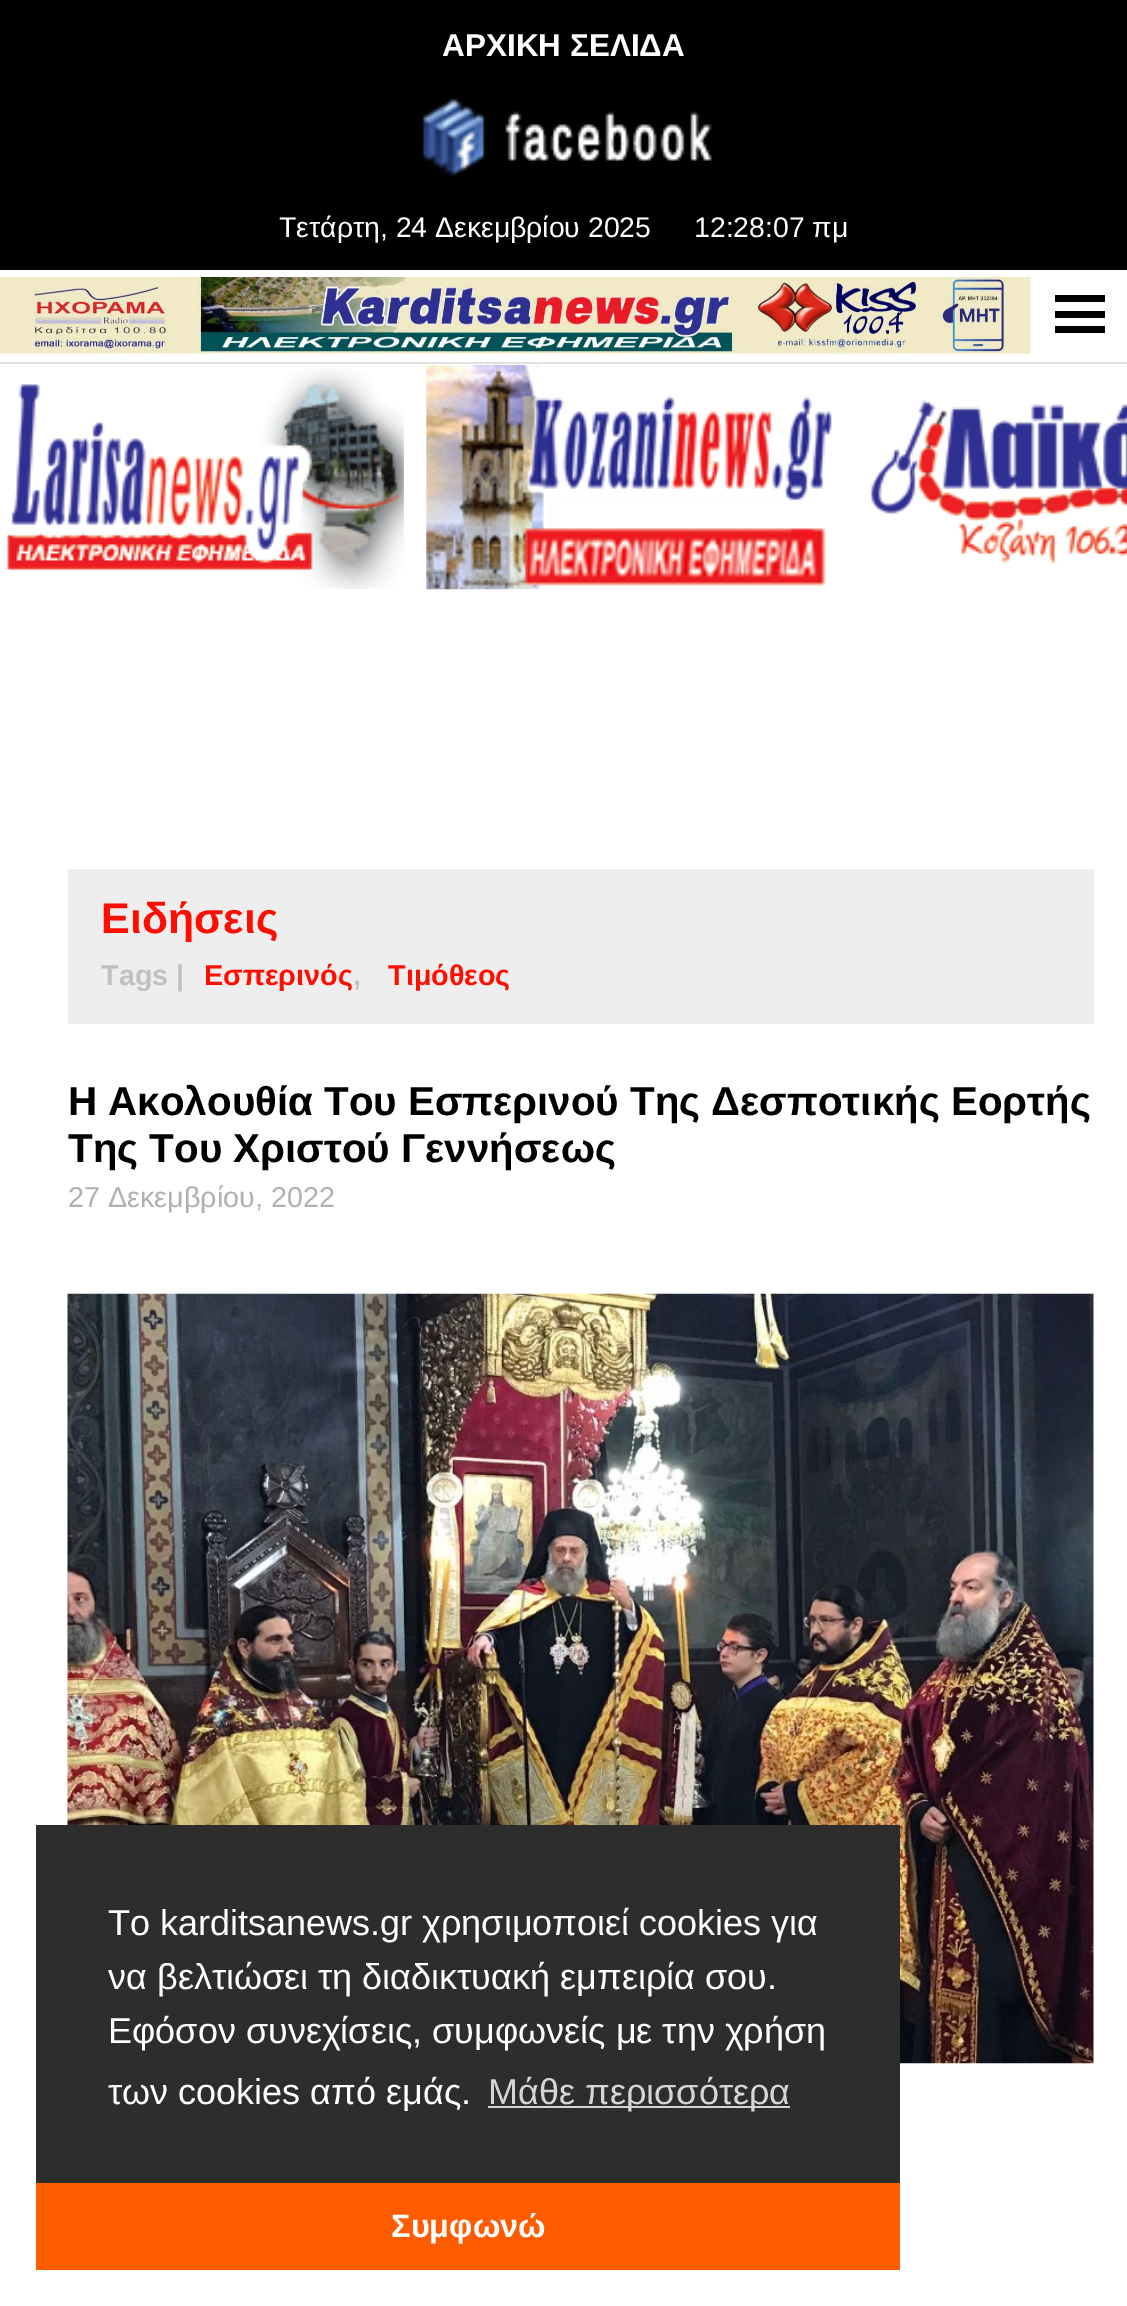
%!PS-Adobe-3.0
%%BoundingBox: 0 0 1127 2306
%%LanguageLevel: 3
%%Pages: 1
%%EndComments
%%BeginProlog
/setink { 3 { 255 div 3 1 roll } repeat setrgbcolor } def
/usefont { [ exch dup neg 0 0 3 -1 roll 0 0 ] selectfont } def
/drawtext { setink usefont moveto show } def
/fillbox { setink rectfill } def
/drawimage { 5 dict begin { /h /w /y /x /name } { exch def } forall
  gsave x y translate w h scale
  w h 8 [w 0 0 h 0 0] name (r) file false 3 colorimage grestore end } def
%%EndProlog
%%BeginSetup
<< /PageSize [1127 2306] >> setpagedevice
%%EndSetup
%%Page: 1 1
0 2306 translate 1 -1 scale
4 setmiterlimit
0 0 1127 2306 255 255 255 fillbox
0 362 1127 2 225 225 225 fillbox
0 0 1127 270 0 0 0 fillbox
(ΑΡΧΙΚΗ ΣΕΛΙΔΑ) 442 56 /LiberationSans-Bold 31.5 255 255 255 drawtext
(assets/img1.rgb) 422 98 290 78 drawimage
(Τετάρτη, 24 Δεκεμβρίου 2025) 279 237 /LiberationSans-Regular 28.4 255 255 255 drawtext
(12:28:07 πμ) 694 237 /LiberationSans-Regular 28.4 255 255 255 drawtext
(assets/img2.rgb) 0 277 1031 77 drawimage
1055 311 50 7 0 0 0 fillbox
1055 295 50 7 0 0 0 fillbox
1055 326 50 7 0 0 0 fillbox
(assets/img3.rgb) 7 368 397 221 drawimage
(assets/img4.rgb) 426 365 406 225 drawimage
(assets/img5.rgb) 869 400 258 164 drawimage
68 869 1026 155 238 238 238 fillbox
(Ειδήσεις) 101 933 /LiberationSans-Bold 43 255 14 0 drawtext
(Tags |) 101 985 /LiberationSans-Bold 28.75 192 192 192 drawtext
(Εσπερινός) 204 985 /LiberationSans-Bold 28.75 255 14 0 drawtext
(,) 353 985 /LiberationSans-Bold 28.75 192 192 192 drawtext
(Τιμόθεος) 388 985 /LiberationSans-Bold 28.75 255 14 0 drawtext
(Η Ακολουθία Του Εσπερινού Της Δεσποτικής Εορτής) 68 1115 /LiberationSans-Bold 40.3 0 0 0 drawtext
(Της Του Χριστού Γεννήσεως) 68 1162 /LiberationSans-Bold 40.3 0 0 0 drawtext
(27 Δεκεμβρίου, 2022) 68 1207 /LiberationSans-Regular 28.75 176 176 176 drawtext
(assets/img6.rgb) 67 1293 1027 771 drawimage
36 1825 864 358 45 45 45 fillbox
(Το karditsanews.gr χρησιμοποιεί cookies για) 108 1935 /LiberationSans-Regular 36 255 255 255 drawtext
(να βελτιώσει τη διαδικτυακή εμπειρία σου.) 108 1989 /LiberationSans-Regular 36 255 255 255 drawtext
(Εφόσον συνεχίσεις, συμφωνείς με την χρήση) 108 2043 /LiberationSans-Regular 36 255 255 255 drawtext
(των cookies από εμάς.) 108 2104 /LiberationSans-Regular 36 255 255 255 drawtext
488 2106 302 2 213 213 213 fillbox
(Μάθε περισσότερα) 488 2104 /LiberationSans-Regular 36 213 213 213 drawtext
36 2183 864 87 255 92 0 fillbox
(Συμφωνώ) 391 2237 /LiberationSans-Bold 32.5 255 255 255 drawtext
showpage
%%EOF
